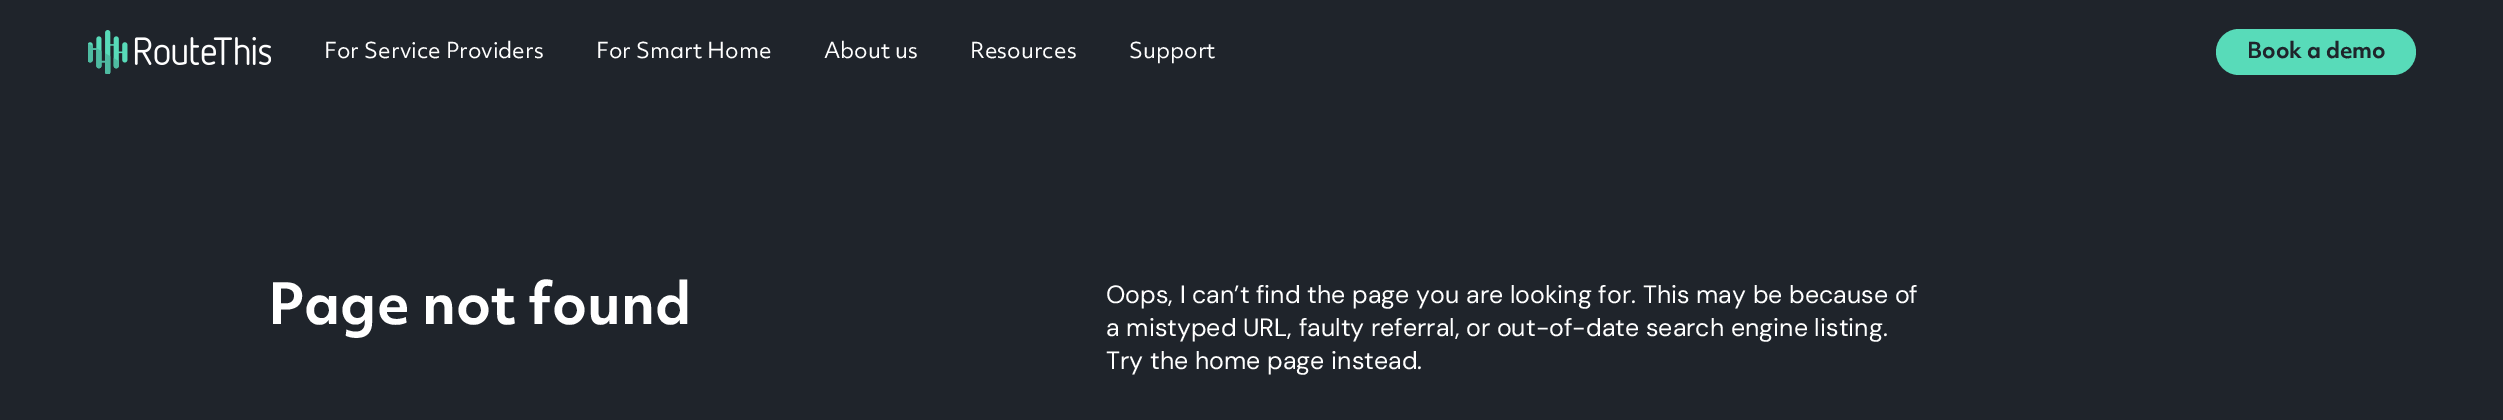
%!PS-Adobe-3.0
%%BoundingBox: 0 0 2503 420
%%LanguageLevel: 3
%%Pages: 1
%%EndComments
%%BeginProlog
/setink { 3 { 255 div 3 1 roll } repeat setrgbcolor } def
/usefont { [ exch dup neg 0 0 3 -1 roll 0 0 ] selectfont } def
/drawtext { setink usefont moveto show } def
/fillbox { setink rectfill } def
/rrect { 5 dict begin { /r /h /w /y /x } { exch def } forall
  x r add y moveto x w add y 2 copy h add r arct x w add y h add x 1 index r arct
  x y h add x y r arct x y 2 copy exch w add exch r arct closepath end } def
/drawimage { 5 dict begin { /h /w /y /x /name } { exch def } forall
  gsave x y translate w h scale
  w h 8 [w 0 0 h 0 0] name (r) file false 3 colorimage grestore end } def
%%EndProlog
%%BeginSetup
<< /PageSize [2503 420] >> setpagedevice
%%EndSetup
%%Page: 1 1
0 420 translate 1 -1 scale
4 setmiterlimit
0 0 2503 420 31 36 43 fillbox
(assets/img1.rgb) 88 30 183 44 drawimage
(For Service Providers) 324 58 /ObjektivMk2-Regular 21.25 255 255 255 drawtext
(For Smart Home) 596 58 /ObjektivMk2-Regular 21.25 255 255 255 drawtext
(About us) 824 58 /ObjektivMk2-Regular 21.25 255 255 255 drawtext
(Resources) 970 58 /ObjektivMk2-Regular 21.25 255 255 255 drawtext
(Support) 1129 58 /ObjektivMk2-Regular 21.25 255 255 255 drawtext
88 219 185 setink
2216 29 200 46 23 rrect fill
(Book a demo) 2247 58 /ObjektivMk2-Bold 21.25 31 36 43 drawtext
(Page not found) 268 324 /ObjektivMk2-Bold 55 255 255 255 drawtext
(Oops, I can’t find the page you are looking for. This may be because of) 1106 303 /DMSans-Regular 25 255 255 255 drawtext
(a mistyped URL, faulty referral, or out-of-date search engine listing.) 1106 336 /DMSans-Regular 25 255 255 255 drawtext
(Try the home page instead.) 1106 369 /DMSans-Regular 25 255 255 255 drawtext
showpage
%%EOF
